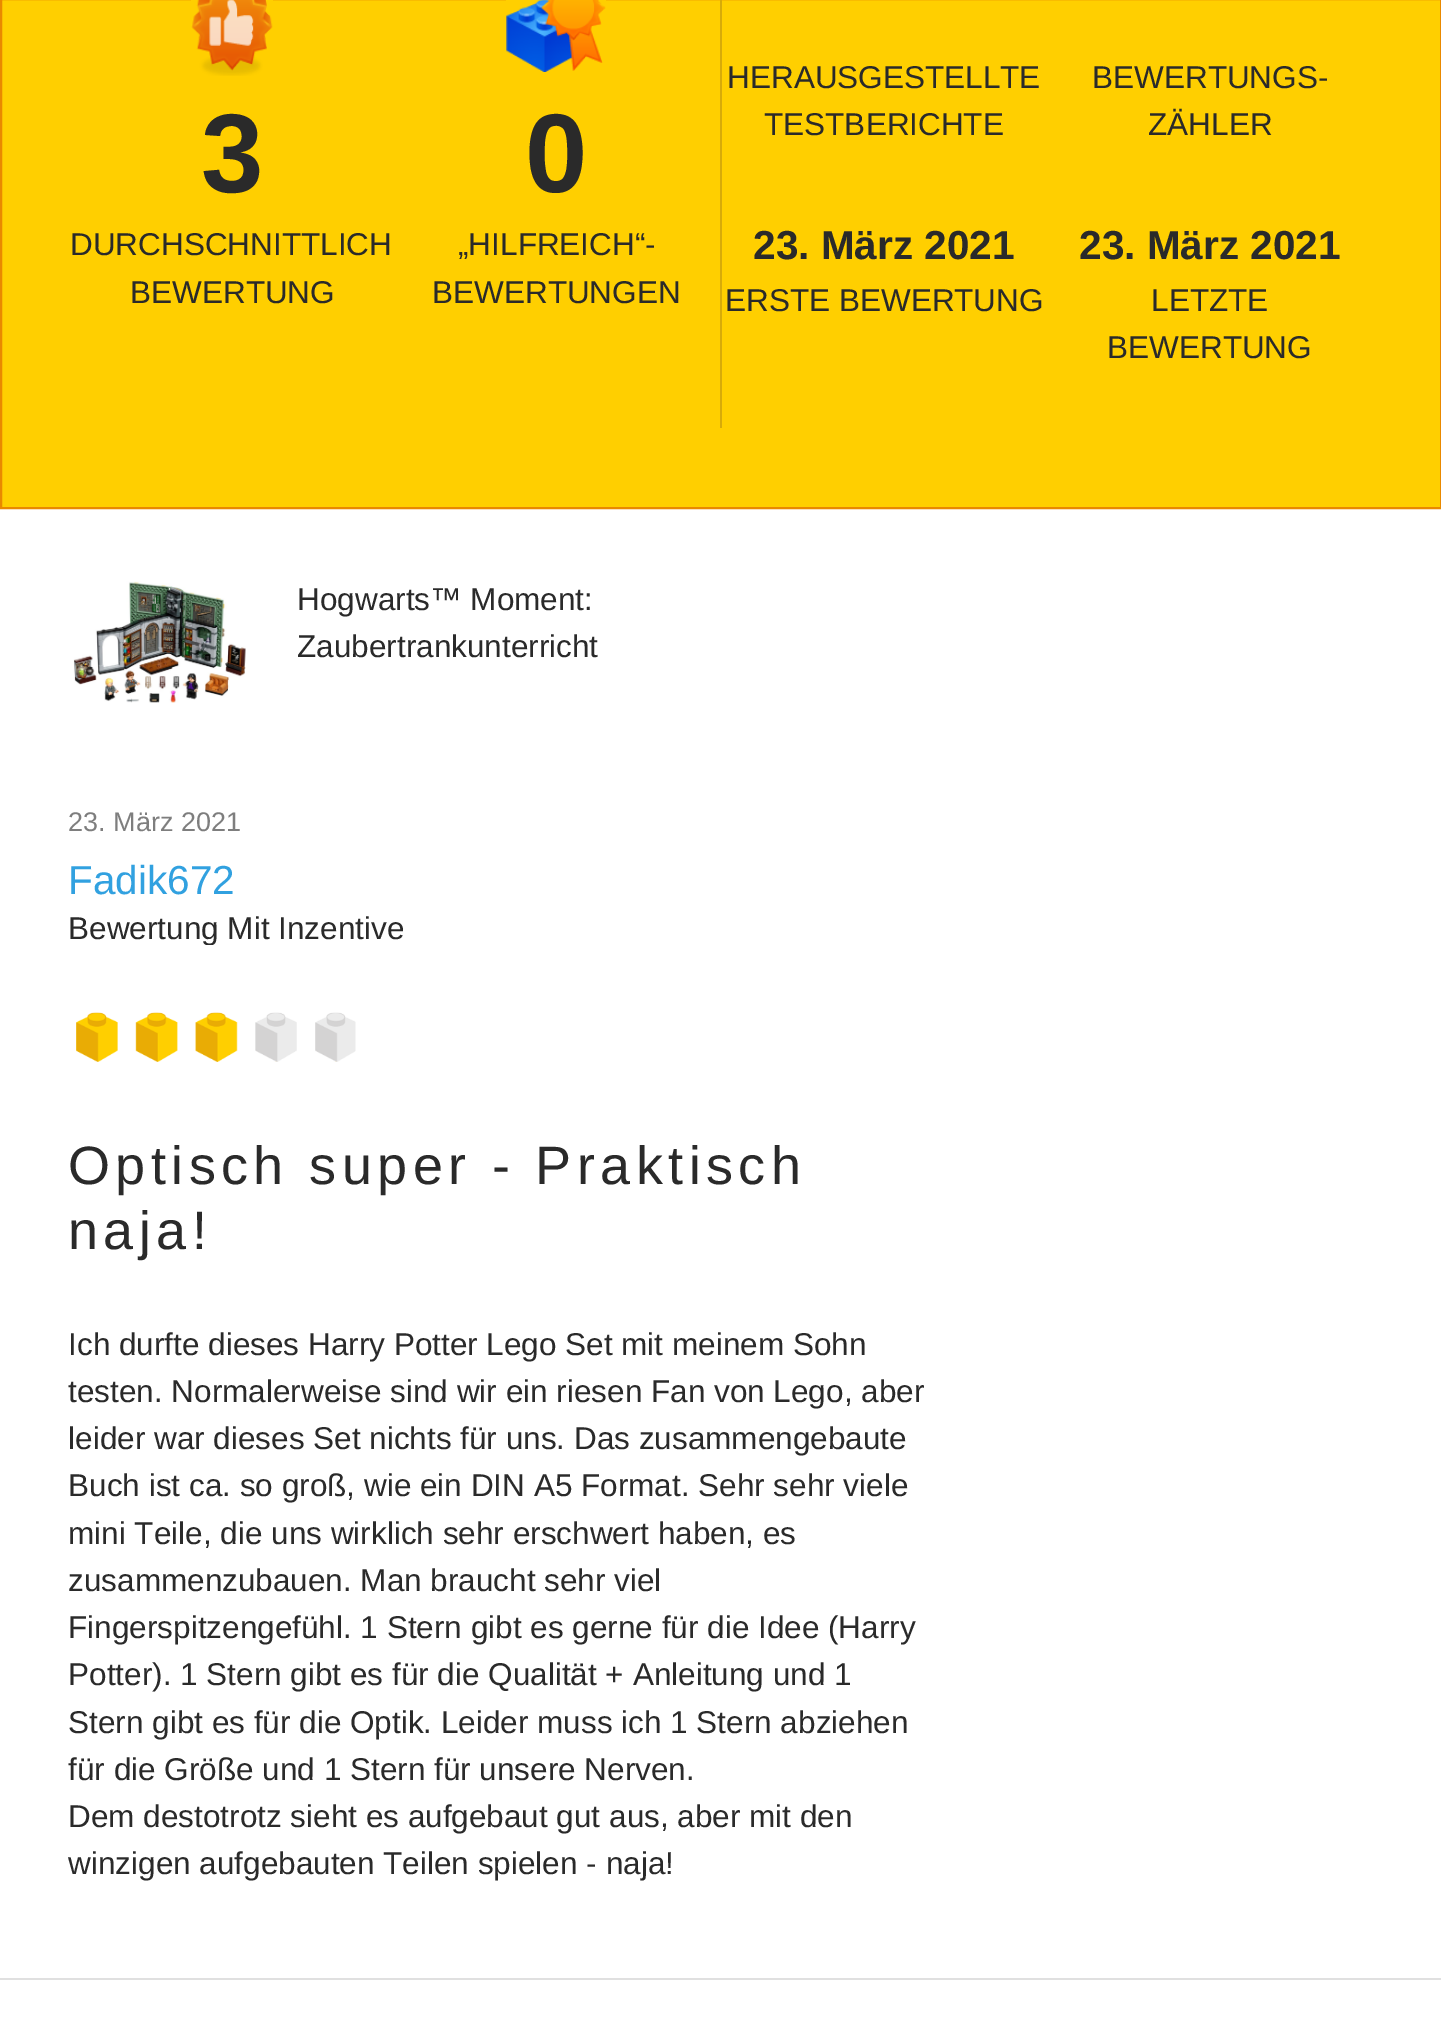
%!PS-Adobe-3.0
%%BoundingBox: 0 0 1441 2027
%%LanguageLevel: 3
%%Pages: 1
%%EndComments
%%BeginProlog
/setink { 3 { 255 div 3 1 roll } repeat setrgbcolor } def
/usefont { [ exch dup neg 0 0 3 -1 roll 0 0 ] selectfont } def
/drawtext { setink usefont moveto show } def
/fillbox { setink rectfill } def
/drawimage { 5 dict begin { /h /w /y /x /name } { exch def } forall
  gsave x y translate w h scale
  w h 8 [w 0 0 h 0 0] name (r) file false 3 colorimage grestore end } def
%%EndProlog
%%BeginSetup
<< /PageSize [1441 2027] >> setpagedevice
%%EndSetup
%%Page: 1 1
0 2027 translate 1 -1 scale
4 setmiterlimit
0 0 1441 2027 255 255 255 fillbox
255 207 0 setink
1 -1 moveto 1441 -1 lineto 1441 508 lineto 1 508 lineto closepath gsave fill grestore
233 137 0 setink
2 setlinewidth
stroke
720 0 2 428 215 171 9 fillbox
(assets/img1.rgb) 191 0 82 76 drawimage
(3) 201 192 /LiberationSans-Bold 112 42 42 42 drawtext
(DURCHSCHNITTLICH) 70 255 /LiberationSans-Regular 31.5 42 42 42 drawtext
(BEWERTUNG) 130 303 /LiberationSans-Regular 31.5 42 42 42 drawtext
(assets/img2.rgb) 506 0 100 72 drawimage
(0) 525 192 /LiberationSans-Bold 112 42 42 42 drawtext
(„HILFREICH“-) 458 255 /LiberationSans-Regular 31.5 42 42 42 drawtext
(BEWERTUNGEN) 432 303 /LiberationSans-Regular 31.5 42 42 42 drawtext
(HERAUSGESTELLTE) 727 88 /LiberationSans-Regular 31.5 42 42 42 drawtext
(TESTBERICHTE) 764 135 /LiberationSans-Regular 31.5 42 42 42 drawtext
(BEWERTUNGS-) 1092 88 /LiberationSans-Regular 31.5 42 42 42 drawtext
(ZÄHLER) 1148 135 /LiberationSans-Regular 31.5 42 42 42 drawtext
(23. März 2021) 753 259 /LiberationSans-Bold 40.5 42 42 42 drawtext
(ERSTE BEWERTUNG) 725 311 /LiberationSans-Regular 31.5 42 42 42 drawtext
(23. März 2021) 1079 259 /LiberationSans-Bold 40.5 42 42 42 drawtext
(LETZTE) 1151 311 /LiberationSans-Regular 31.5 42 42 42 drawtext
(BEWERTUNG) 1107 358 /LiberationSans-Regular 31.5 42 42 42 drawtext
0 1978 1441 2 224 224 224 fillbox
(assets/img3.rgb) 73 581 173 122 drawimage
(Hogwarts™ Moment:) 297 610 /LiberationSans-Regular 31.5 42 42 42 drawtext
(Zaubertrankunterricht) 297 657 /LiberationSans-Regular 31.5 42 42 42 drawtext
(23. März 2021) 68 831 /LiberationSans-Regular 27 126 126 126 drawtext
(Fadik672) 68 894 /LiberationSans-Regular 40.5 49 161 224 drawtext
gsave
68 914 335 31 rectclip
(Bewertung Mit Inzentive) 68 939 /LiberationSans-Regular 31.5 42 42 42 drawtext
grestore
(assets/img4.rgb) 76 1012 280 50 drawimage
/LiberationSans-Regular 54 usefont
42 42 42 setink
68 1184 moveto 5.4 0 (Optisch super - Praktisch) ashow
68 1249 moveto 5.4 0 (naja!) ashow
(Ich durfte dieses Harry Potter Lego Set mit meinem Sohn) 68 1355 /LiberationSans-Regular 31.5 42 42 42 drawtext
(testen. Normalerweise sind wir ein riesen Fan von Lego, aber) 68 1402 /LiberationSans-Regular 31.5 42 42 42 drawtext
(leider war dieses Set nichts für uns. Das zusammengebaute) 68 1449 /LiberationSans-Regular 31.5 42 42 42 drawtext
(Buch ist ca. so groß, wie ein DIN A5 Format. Sehr sehr viele) 68 1496 /LiberationSans-Regular 31.5 42 42 42 drawtext
(mini Teile, die uns wirklich sehr erschwert haben, es) 68 1544 /LiberationSans-Regular 31.5 42 42 42 drawtext
(zusammenzubauen. Man braucht sehr viel) 68 1591 /LiberationSans-Regular 31.5 42 42 42 drawtext
(Fingerspitzengefühl. 1 Stern gibt es gerne für die Idee \(Harry) 68 1638 /LiberationSans-Regular 31.5 42 42 42 drawtext
(Potter\). 1 Stern gibt es für die Qualität + Anleitung und 1) 68 1685 /LiberationSans-Regular 31.5 42 42 42 drawtext
(Stern gibt es für die Optik. Leider muss ich 1 Stern abziehen) 68 1733 /LiberationSans-Regular 31.5 42 42 42 drawtext
(für die Größe und 1 Stern für unsere Nerven.) 68 1780 /LiberationSans-Regular 31.5 42 42 42 drawtext
(Dem destotrotz sieht es aufgebaut gut aus, aber mit den) 68 1827 /LiberationSans-Regular 31.5 42 42 42 drawtext
(winzigen aufgebauten Teilen spielen - naja!) 68 1874 /LiberationSans-Regular 31.5 42 42 42 drawtext
showpage
%%EOF
